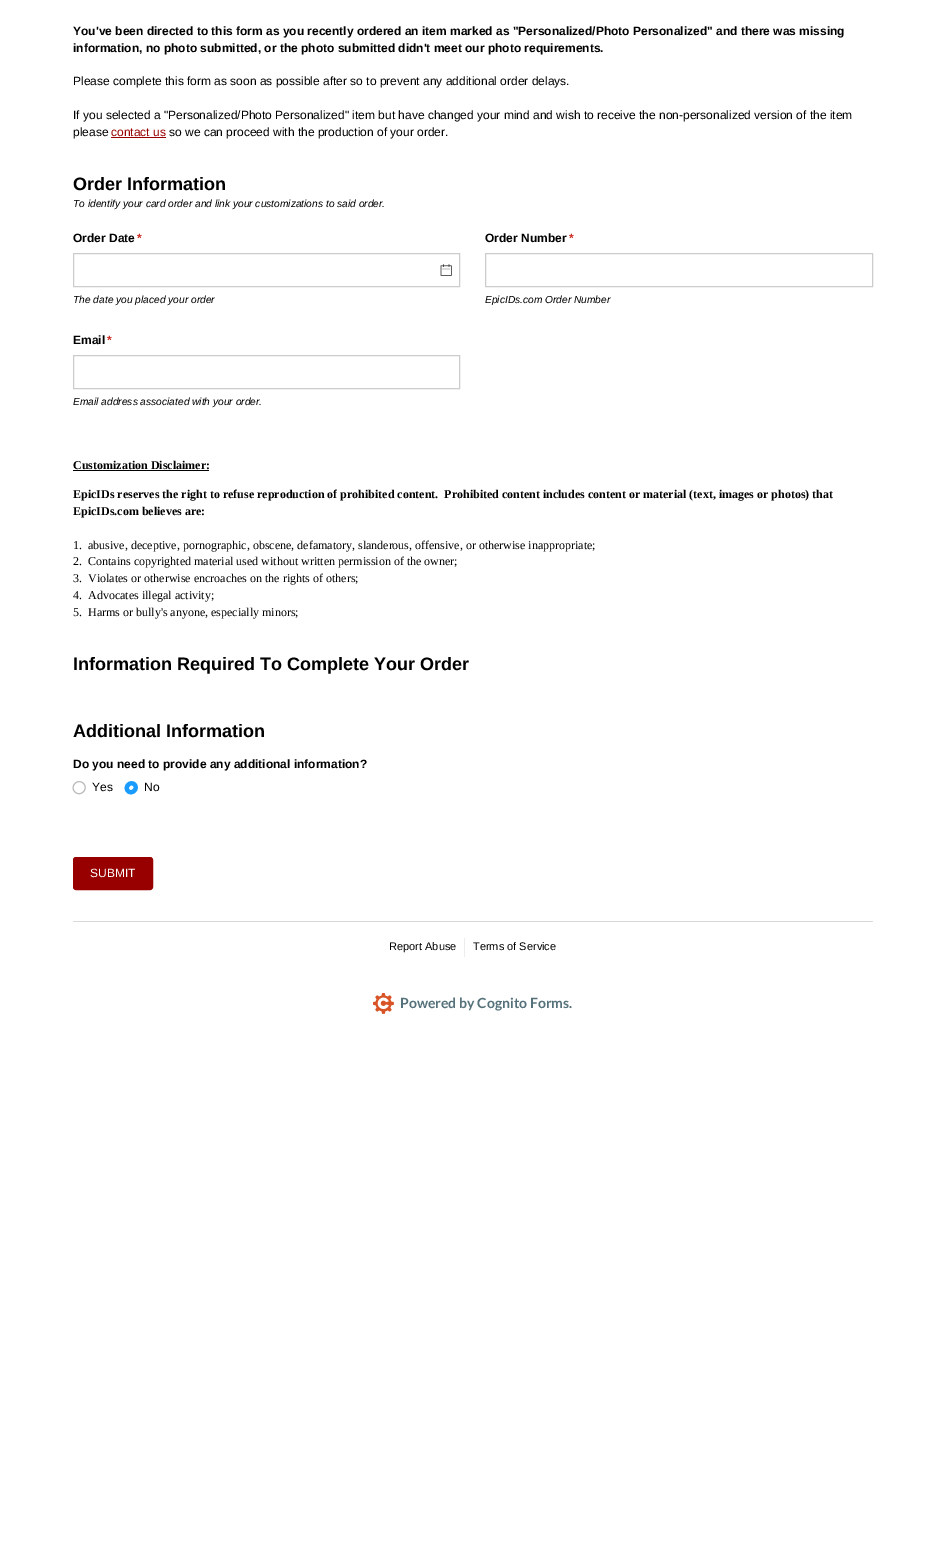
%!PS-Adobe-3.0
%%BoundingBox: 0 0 945 1562
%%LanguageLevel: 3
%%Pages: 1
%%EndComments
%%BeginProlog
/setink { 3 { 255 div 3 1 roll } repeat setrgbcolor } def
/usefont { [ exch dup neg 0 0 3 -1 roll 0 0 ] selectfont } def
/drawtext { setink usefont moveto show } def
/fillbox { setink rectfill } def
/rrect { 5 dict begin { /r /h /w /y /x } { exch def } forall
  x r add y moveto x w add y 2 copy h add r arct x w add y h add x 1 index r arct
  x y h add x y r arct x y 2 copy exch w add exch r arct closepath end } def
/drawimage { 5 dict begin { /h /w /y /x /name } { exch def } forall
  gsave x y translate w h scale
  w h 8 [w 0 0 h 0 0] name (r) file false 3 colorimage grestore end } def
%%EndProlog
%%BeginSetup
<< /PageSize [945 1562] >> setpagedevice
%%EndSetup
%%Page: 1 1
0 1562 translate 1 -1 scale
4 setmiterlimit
0 0 945 1562 255 255 255 fillbox
(You've been directed to this form as you recently ordered an item marked as "Personalized/Photo Personalized" and there was missing) 73 35 /LiberationSans-Bold 12 0 0 0 drawtext
(information, no photo submitted, or the photo submitted didn't meet our photo requirements.) 73 52 /LiberationSans-Bold 12 0 0 0 drawtext
(Please complete this form as soon as possible after so to prevent any additional order delays.) 73 85 /LiberationSans-Regular 12 0 0 0 drawtext
(If you selected a "Personalized/Photo Personalized" item but have changed your mind and wish to receive the non-personalized version of the item) 73 119 /LiberationSans-Regular 12 0 0 0 drawtext
(please) 73 136 /LiberationSans-Regular 12 0 0 0 drawtext
(contact us) 111 136 /LiberationSans-Regular 12 152 0 0 drawtext
111 137 55 1 152 0 0 fillbox
(so we can proceed with the production of your order.) 169 136 /LiberationSans-Regular 12 0 0 0 drawtext
(Order Information) 73 190 /LiberationSans-Bold 18 0 0 0 drawtext
(To identify your card order and link your customizations to said order.) 73 207 /LiberationSans-Italic 10.2 0 0 0 drawtext
(Order Date) 73 242 /LiberationSans-Bold 12 0 0 0 drawtext
(*) 137 242 /LiberationSans-Bold 12 204 42 36 drawtext
204 204 204 setink
73.5 253.5 386 33 rectstroke
(assets/img1.rgb) 440 264 12 12 drawimage
(The date you placed your order) 73 303 /LiberationSans-Italic 10.2 0 0 0 drawtext
(Order Number) 485 242 /LiberationSans-Bold 12 0 0 0 drawtext
(*) 569 242 /LiberationSans-Bold 12 204 42 36 drawtext
204 204 204 setink
485.5 253.5 387 33 rectstroke
(EpicIDs.com Order Number) 485 303 /LiberationSans-Italic 10.2 0 0 0 drawtext
(Email) 73 344 /LiberationSans-Bold 12 0 0 0 drawtext
(*) 107 344 /LiberationSans-Bold 12 204 42 36 drawtext
204 204 204 setink
73.5 355.5 386 33 rectstroke
(Email address associated with your order.) 73 405 /LiberationSans-Italic 10.2 0 0 0 drawtext
(Customization Disclaimer:) 73 469 /LiberationSerif-Bold 12 0 0 0 drawtext
73 470 136 1 0 0 0 fillbox
(EpicIDs reserves the right to refuse reproduction of prohibited content.  Prohibited content includes content or material \(text, images or photos\) that) 73 498 /LiberationSerif-Bold 12 0 0 0 drawtext
(EpicIDs.com believes are:) 73 515 /LiberationSerif-Bold 12 0 0 0 drawtext
(1.  abusive, deceptive, pornographic, obscene, defamatory, slanderous, offensive, or otherwise inappropriate;) 73 549 /LiberationSerif-Regular 12 0 0 0 drawtext
(2.  Contains copyrighted material used without written permission of the owner;) 73 565 /LiberationSerif-Regular 12 0 0 0 drawtext
(3.  Violates or otherwise encroaches on the rights of others;) 73 582 /LiberationSerif-Regular 12 0 0 0 drawtext
(4.  Advocates illegal activity;) 73 599 /LiberationSerif-Regular 12 0 0 0 drawtext
(5.  Harms or bully's anyone, especially minors;) 73 616 /LiberationSerif-Regular 12 0 0 0 drawtext
(Information Required To Complete Your Order) 73 670 /LiberationSans-Bold 18 0 0 0 drawtext
(Additional Information) 73 737 /LiberationSans-Bold 18 0 0 0 drawtext
(Do you need to provide any additional information?) 73 768 /LiberationSans-Bold 12 0 0 0 drawtext
187 187 187 setink
83.5 783.5 moveto 89 789 80.5 797.5 75 792 curveto 69 786.5 78 777.5 83.5 783.5 curveto closepath stroke
(Yes) 92 791 /LiberationSans-Regular 12 0 0 0 drawtext
26 156 255 setink
4.2 setlinewidth
134.5 784.5 moveto 138.5 788.5 132 795 128 791 curveto 124 787 130.5 780.5 134.5 784.5 curveto closepath stroke
(No) 144 791 /LiberationSans-Regular 12 0 0 0 drawtext
152 0 0 setink
73.5 857.5 79 32 2.5 rrect gsave fill grestore
1 setlinewidth
stroke
(SUBMIT) 90 877 /LiberationSans-Regular 12 255 255 255 drawtext
73 921 800 1 217 217 217 fillbox
(Report Abuse) 389 950 /LiberationSans-Regular 11 0 0 0 drawtext
464 938 1 19 236 236 236 fillbox
(Terms of Service) 473 950 /LiberationSans-Regular 11 0 0 0 drawtext
(assets/img2.rgb) 373 993 21 21 drawimage
(Powered by Cognito Forms.) 400 1008 /Lato-Bold 14 85 114 123 drawtext
showpage
%%EOF
